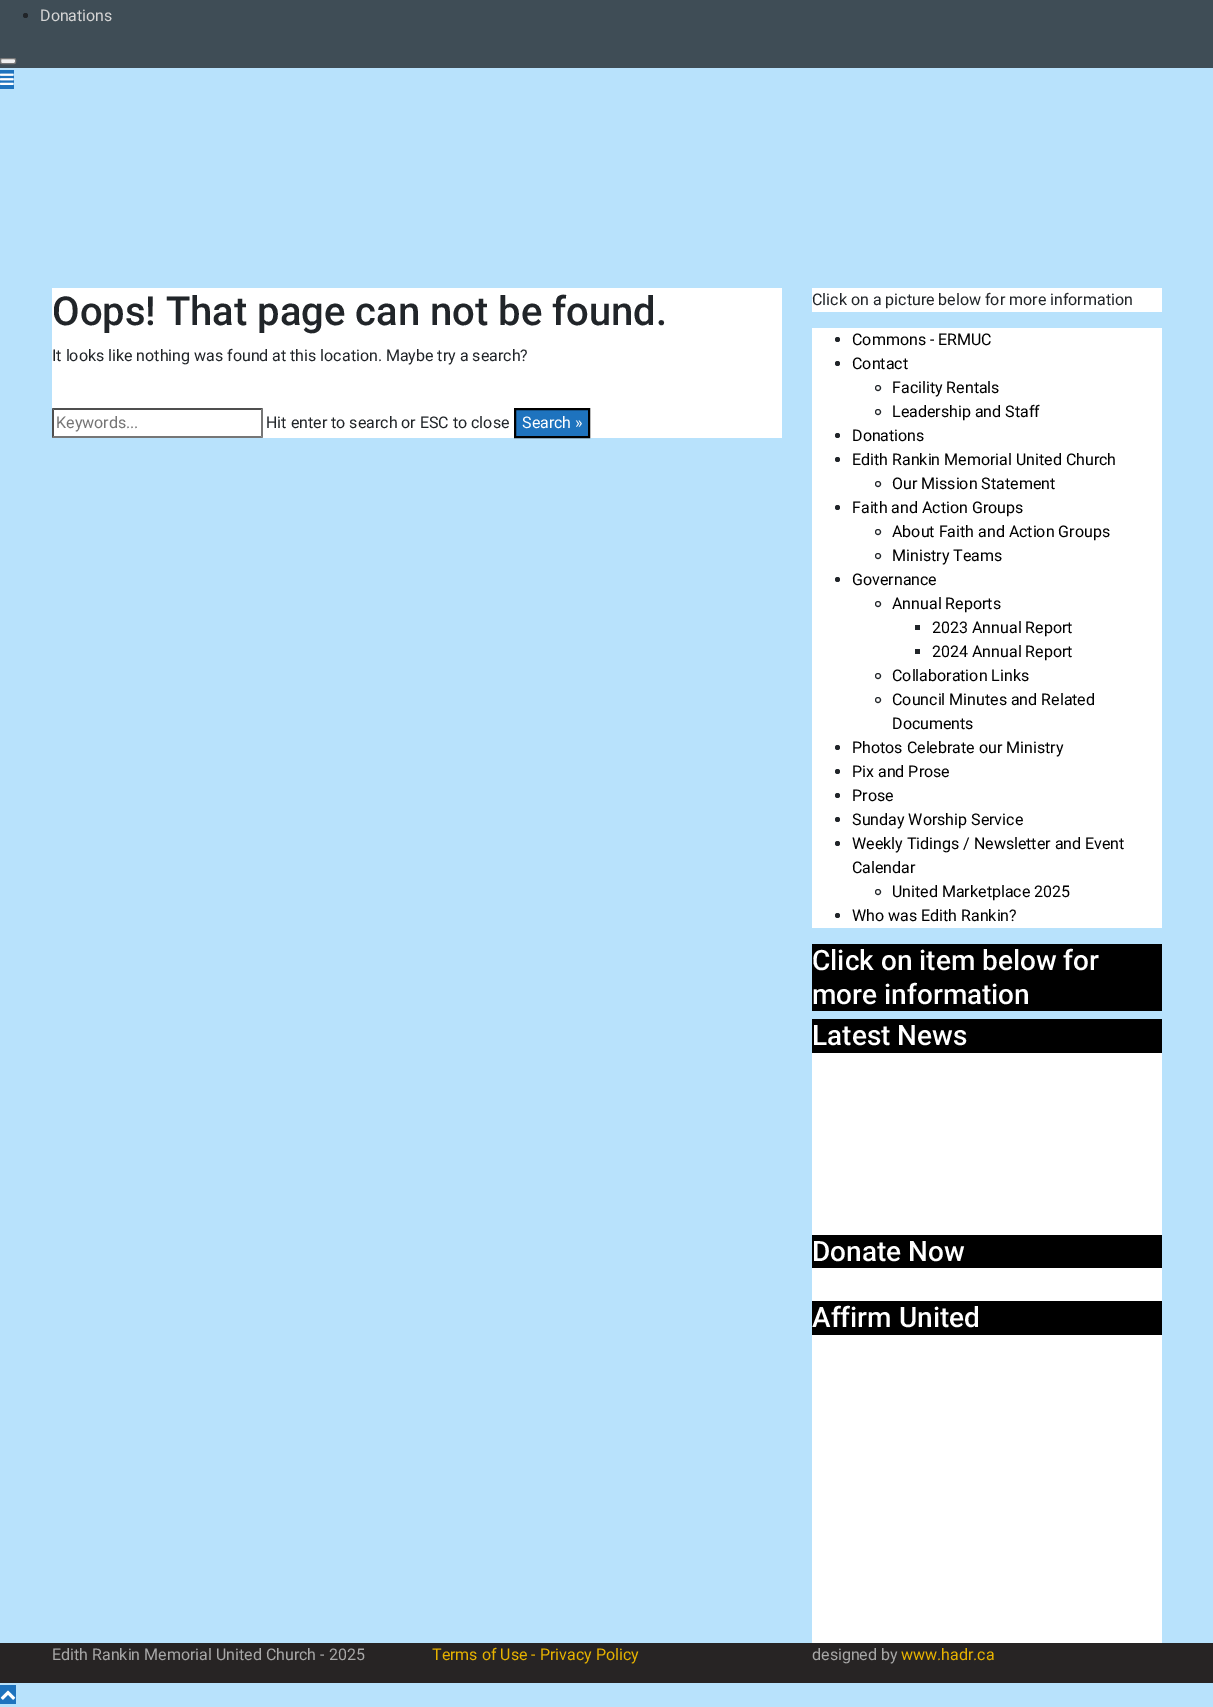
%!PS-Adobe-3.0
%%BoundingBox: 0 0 1213 1707
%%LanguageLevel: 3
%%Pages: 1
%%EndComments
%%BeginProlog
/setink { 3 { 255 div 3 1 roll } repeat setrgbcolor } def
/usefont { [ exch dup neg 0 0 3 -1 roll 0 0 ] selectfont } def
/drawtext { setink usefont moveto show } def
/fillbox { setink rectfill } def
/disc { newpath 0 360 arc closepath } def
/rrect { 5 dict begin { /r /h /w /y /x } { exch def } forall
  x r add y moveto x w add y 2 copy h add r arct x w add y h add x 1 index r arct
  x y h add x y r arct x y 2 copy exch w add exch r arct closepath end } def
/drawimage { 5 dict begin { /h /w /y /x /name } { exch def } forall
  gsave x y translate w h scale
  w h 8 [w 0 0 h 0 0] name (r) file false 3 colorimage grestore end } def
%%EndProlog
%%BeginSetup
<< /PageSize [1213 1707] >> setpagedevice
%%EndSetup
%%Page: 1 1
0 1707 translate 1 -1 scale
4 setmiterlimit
0 0 1213 1707 184 226 252 fillbox
0 0 1213 68 63 77 86 fillbox
33 37 41 setink
25.5 15.5 2.5 disc fill
(Donations) 40 21 /Roboto-Regular 16 213 213 213 drawtext
239 239 239 setink
0.5 58.5 15 5 1.5 rrect gsave fill grestore
118 118 118 setink
stroke
0 70 14 19 30 115 190 fillbox
(assets/img1.rgb) 0 73 14 12 drawimage
52 288 730 150 255 255 255 fillbox
(Oops! That page can not be found.) 52 325 /Roboto-Medium 40 33 37 41 drawtext
(It looks like nothing was found at this location. Maybe try a search?) 52 361 /Roboto-Regular 16 33 37 41 drawtext
79 79 79 setink
52 408 moveto 263 408 lineto 261 410 lineto 54 410 lineto closepath fill
118 118 118 setink
263 408 moveto 263 438 lineto 261 436 lineto 261 410 lineto closepath fill
263 438 moveto 52 438 lineto 54 436 lineto 261 436 lineto closepath fill
79 79 79 setink
52 438 moveto 52 408 lineto 54 410 lineto 54 436 lineto closepath fill
(Keywords...) 56 428 /Roboto-Regular 16 117 117 117 drawtext
(Hit enter to search or ESC to close) 266 428 /Roboto-Regular 16 33 37 41 drawtext
30 115 190 setink
515 409 moveto 589 409 lineto 589 437 lineto 515 437 lineto closepath gsave fill grestore
0 0 0 setink
2 setlinewidth
stroke
(Search ») 522 428 /Roboto-Regular 16 255 255 255 drawtext
812 288 350 24 255 255 255 fillbox
(Click on a picture below for more information) 812 305 /Roboto-Regular 16 33 37 41 drawtext
812 328 350 600 255 255 255 fillbox
33 37 41 setink
837.5 339.5 2.5 disc fill
(Commons - ERMUC) 852 345 /Roboto-Regular 16 0 0 0 drawtext
33 37 41 setink
837.5 363.5 2.5 disc fill
(Contact) 852 369 /Roboto-Regular 16 0 0 0 drawtext
33 37 41 setink
1 setlinewidth
878 388 2.5 disc stroke
(Facility Rentals) 892 393 /Roboto-Regular 16 0 0 0 drawtext
33 37 41 setink
878 412 2.5 disc stroke
(Leadership and Staff) 892 417 /Roboto-Regular 16 0 0 0 drawtext
33 37 41 setink
837.5 435.5 2.5 disc fill
(Donations) 852 441 /Roboto-Regular 16 0 0 0 drawtext
33 37 41 setink
837.5 459.5 2.5 disc fill
(Edith Rankin Memorial United Church) 852 465 /Roboto-Regular 16 0 0 0 drawtext
33 37 41 setink
878 484 2.5 disc stroke
(Our Mission Statement) 892 489 /Roboto-Regular 16 0 0 0 drawtext
33 37 41 setink
837.5 507.5 2.5 disc fill
(Faith and Action Groups) 852 513 /Roboto-Regular 16 0 0 0 drawtext
33 37 41 setink
878 532 2.5 disc stroke
(About Faith and Action Groups) 892 537 /Roboto-Regular 16 0 0 0 drawtext
33 37 41 setink
878 556 2.5 disc stroke
(Ministry Teams) 892 561 /Roboto-Regular 16 0 0 0 drawtext
33 37 41 setink
837.5 579.5 2.5 disc fill
(Governance) 852 585 /Roboto-Regular 16 0 0 0 drawtext
33 37 41 setink
878 604 2.5 disc stroke
(Annual Reports) 892 609 /Roboto-Regular 16 0 0 0 drawtext
915 625 5 5 33 37 41 fillbox
(2023 Annual Report) 932 633 /Roboto-Regular 16 0 0 0 drawtext
915 649 5 5 33 37 41 fillbox
(2024 Annual Report) 932 657 /Roboto-Regular 16 0 0 0 drawtext
33 37 41 setink
878 676 2.5 disc stroke
(Collaboration Links) 892 681 /Roboto-Regular 16 0 0 0 drawtext
33 37 41 setink
878 700 2.5 disc stroke
(Council Minutes and Related) 892 705 /Roboto-Regular 16 0 0 0 drawtext
(Documents) 892 729 /Roboto-Regular 16 0 0 0 drawtext
33 37 41 setink
837.5 747.5 2.5 disc fill
(Photos Celebrate our Ministry) 852 753 /Roboto-Regular 16 0 0 0 drawtext
33 37 41 setink
837.5 771.5 2.5 disc fill
(Pix and Prose) 852 777 /Roboto-Regular 16 0 0 0 drawtext
33 37 41 setink
837.5 795.5 2.5 disc fill
(Prose) 852 801 /Roboto-Regular 16 0 0 0 drawtext
33 37 41 setink
837.5 819.5 2.5 disc fill
(Sunday Worship Service) 852 825 /Roboto-Regular 16 0 0 0 drawtext
33 37 41 setink
837.5 843.5 2.5 disc fill
(Weekly Tidings / Newsletter and Event) 852 849 /Roboto-Regular 16 0 0 0 drawtext
(Calendar) 852 873 /Roboto-Regular 16 0 0 0 drawtext
33 37 41 setink
878 892 2.5 disc stroke
(United Marketplace 2025) 892 897 /Roboto-Regular 16 0 0 0 drawtext
33 37 41 setink
837.5 915.5 2.5 disc fill
(Who was Edith Rankin?) 852 921 /Roboto-Regular 16 0 0 0 drawtext
812 944 350 67 0 0 0 fillbox
(Click on item below for) 812 970 /Roboto-Medium 28 255 255 255 drawtext
(more information) 812 1004 /Roboto-Medium 28 255 255 255 drawtext
812 1053 350 182 255 255 255 fillbox
812 1019 350 34 0 0 0 fillbox
(Latest News) 812 1045 /Roboto-Medium 28 255 255 255 drawtext
812 1268 350 33 255 255 255 fillbox
812 1235 350 33 0 0 0 fillbox
(Donate Now) 812 1261 /Roboto-Medium 28 255 255 255 drawtext
812 1335 350 308 255 255 255 fillbox
812 1301 350 34 0 0 0 fillbox
(Affirm United) 812 1327 /Roboto-Medium 28 255 255 255 drawtext
0 1643 1213 40 39 36 36 fillbox
(Edith Rankin Memorial United Church - 2025) 52 1660 /Roboto-Regular 16 167 167 167 drawtext
(Terms of Use - Privacy Policy) 432 1660 /Roboto-Regular 16 230 178 0 drawtext
(designed by) 812 1660 /Roboto-Regular 16 167 167 167 drawtext
(www.hadr.ca) 901 1660 /Roboto-Regular 16 230 178 0 drawtext
0 1685 16 19 30 115 190 fillbox
(assets/img2.rgb) 0 1690 16 10 drawimage
showpage
%%EOF
